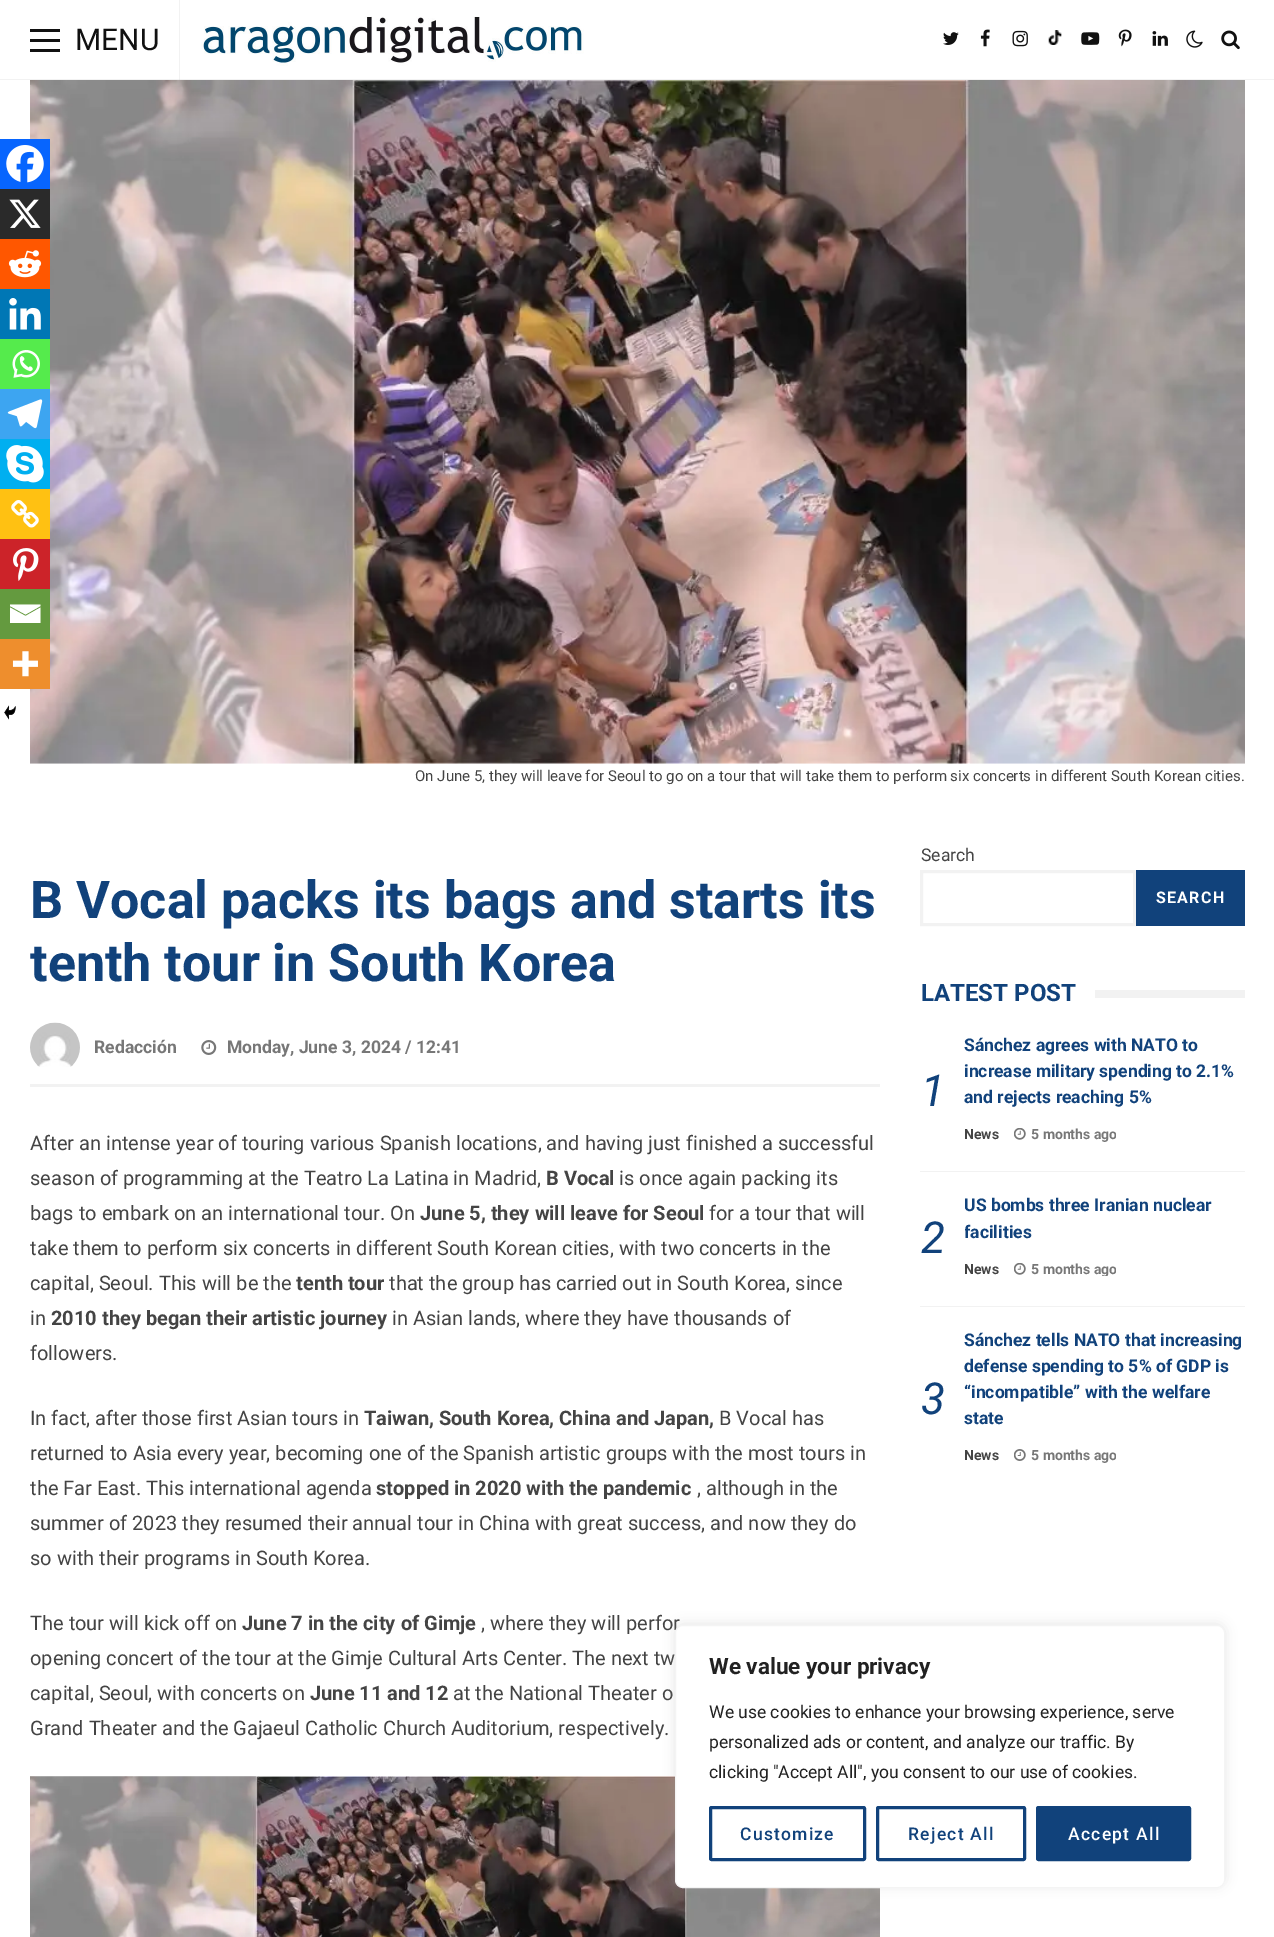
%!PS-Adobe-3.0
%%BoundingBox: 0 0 1274 1937
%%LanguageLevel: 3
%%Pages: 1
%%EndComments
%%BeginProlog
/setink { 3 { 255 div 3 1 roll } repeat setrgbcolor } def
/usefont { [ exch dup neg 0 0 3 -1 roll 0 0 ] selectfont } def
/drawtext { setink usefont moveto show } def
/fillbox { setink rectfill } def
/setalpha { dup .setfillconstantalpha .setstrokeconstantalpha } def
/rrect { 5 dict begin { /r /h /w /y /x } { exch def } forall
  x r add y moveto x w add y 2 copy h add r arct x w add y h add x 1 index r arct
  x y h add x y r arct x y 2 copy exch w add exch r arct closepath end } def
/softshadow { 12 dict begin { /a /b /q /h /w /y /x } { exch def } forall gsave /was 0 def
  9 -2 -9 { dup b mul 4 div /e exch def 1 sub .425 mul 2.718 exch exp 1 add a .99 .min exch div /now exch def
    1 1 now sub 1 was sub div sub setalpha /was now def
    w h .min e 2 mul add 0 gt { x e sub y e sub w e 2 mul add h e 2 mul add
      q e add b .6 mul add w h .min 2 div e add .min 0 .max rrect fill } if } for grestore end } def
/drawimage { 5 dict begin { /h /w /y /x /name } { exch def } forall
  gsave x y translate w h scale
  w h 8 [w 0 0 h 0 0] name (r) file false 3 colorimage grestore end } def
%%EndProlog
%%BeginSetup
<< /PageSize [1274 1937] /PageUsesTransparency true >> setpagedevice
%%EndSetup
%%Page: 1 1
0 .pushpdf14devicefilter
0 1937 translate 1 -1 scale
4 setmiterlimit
0 0 1274 1937 255 255 255 fillbox
179 0 1 80 242 242 242 fillbox
0 79 1274 1 242 242 242 fillbox
179 79 1 1 231 231 231 fillbox
30 39 30 3 17 17 17 fillbox
30 29 30 3 17 17 17 fillbox
30 49 30 3 17 17 17 fillbox
(MENU) 75 50 /Roboto-Regular 30 17 17 17 drawtext
(assets/img1.rgb) 201 16 383 50 drawimage
(assets/img2.rgb) 943 32 16 13 drawimage
(assets/img3.rgb) 980 29 10 18 drawimage
(assets/img4.rgb) 1012 30 16 17 drawimage
(assets/img5.rgb) 1048 30 14 15 drawimage
(assets/img6.rgb) 1081 32 19 13 drawimage
(assets/img7.rgb) 1118 29 14 18 drawimage
(assets/img8.rgb) 1152 31 16 15 drawimage
(assets/img9.rgb) 1186 30 17 18 drawimage
(assets/img10.rgb) 1221 30 19 20 drawimage
(assets/img11.rgb) 30 80 1215 684 drawimage
(On June 5, they will leave for Seoul to go on a tour that will take them to perform six concerts in different South Korean cities.) 415 781 /Roboto-Regular 15 68 68 68 drawtext
(B Vocal packs its bags and starts its) 30 918 /Roboto-Bold 52 17 66 123 drawtext
(tenth tour in South Korea) 30 981 /Roboto-Bold 52 17 66 123 drawtext
(assets/img12.rgb) 30 1022 50 45 drawimage
(Redacción) 94 1053 /Roboto-Bold 17.5 119 119 119 drawtext
(assets/img13.rgb) 201 1040 16 15 drawimage
(Monday, June 3, 2024 / 12:41) 227 1053 /Roboto-Bold 17.5 119 119 119 drawtext
30 1084 850 3 242 242 242 fillbox
0 139 50 50 7 101 254 fillbox
(assets/img14.rgb) 6 145 38 38 drawimage
0 189 50 50 42 42 42 fillbox
(assets/img15.rgb) 9 199 32 29 drawimage
0 239 50 50 255 87 0 fillbox
(assets/img16.rgb) 8 250 34 28 drawimage
0 289 50 50 0 119 181 fillbox
(assets/img17.rgb) 9 298 32 32 drawimage
0 339 50 50 85 235 76 fillbox
(assets/img18.rgb) 12 350 28 28 drawimage
0 389 50 50 61 165 241 fillbox
(assets/img19.rgb) 7 399 36 30 drawimage
0 439 50 50 0 175 240 fillbox
(assets/img20.rgb) 6 445 38 38 drawimage
0 489 50 50 255 193 18 fillbox
(assets/img21.rgb) 11 500 28 28 drawimage
0 539 50 50 204 35 41 fillbox
(assets/img22.rgb) 13 548 26 33 drawimage
0 589 50 50 100 154 63 fillbox
255 255 255 setink
8.5 604.5 moveto 40.5 604.5 lineto 40.5 606 lineto 25.5 614.5 lineto 10 606 lineto 10 604.5 lineto 10 607.5 moveto 25.5 616 lineto 40.5 607.5 lineto 40.5 623 lineto 10 623 lineto 10 607.5 lineto fill
0 639 50 50 238 142 45 fillbox
(assets/img23.rgb) 12 651 26 26 drawimage
(assets/img24.rgb) 4 705 12 15 drawimage
(After an intense year of touring various Spanish locations, and having just finished a successful) 30 1150 /Roboto-Regular 20 68 68 68 drawtext
(season of programming at the Teatro La Latina in Madrid,) 30 1185 /Roboto-Regular 20 68 68 68 drawtext
(B Vocal) 546 1185 /Roboto-Bold 20 68 68 68 drawtext
(is once again packing its) 619 1185 /Roboto-Regular 20 68 68 68 drawtext
(bags to embark on an international tour. On) 30 1220 /Roboto-Regular 20 68 68 68 drawtext
(June 5, they will leave for Seoul) 420 1220 /Roboto-Bold 20 68 68 68 drawtext
(for a tour that will) 709 1220 /Roboto-Regular 20 68 68 68 drawtext
(take them to perform six concerts in different South Korean cities, with two concerts in the) 30 1255 /Roboto-Regular 20 68 68 68 drawtext
(capital, Seoul. This will be the) 30 1290 /Roboto-Regular 20 68 68 68 drawtext
(tenth tour) 296 1290 /Roboto-Bold 20 68 68 68 drawtext
(that the group has carried out in South Korea, since) 389 1290 /Roboto-Regular 20 68 68 68 drawtext
(in) 30 1325 /Roboto-Regular 20 68 68 68 drawtext
(2010 they began their artistic journey) 51 1325 /Roboto-Bold 20 68 68 68 drawtext
(in Asian lands, where they have thousands of) 392 1325 /Roboto-Regular 20 68 68 68 drawtext
(followers.) 30 1360 /Roboto-Regular 20 68 68 68 drawtext
(In fact, after those first Asian tours in) 30 1425 /Roboto-Regular 20 68 68 68 drawtext
(Taiwan, South Korea, China and Japan,) 364 1425 /Roboto-Bold 20 68 68 68 drawtext
(B Vocal has) 719 1425 /Roboto-Regular 20 68 68 68 drawtext
(returned to Asia every year, becoming one of the Spanish artistic groups with the most tours in) 30 1460 /Roboto-Regular 20 68 68 68 drawtext
(the Far East. This international agenda) 30 1495 /Roboto-Regular 20 68 68 68 drawtext
(stopped in 2020 with the pandemic) 376 1495 /Roboto-Bold 20 68 68 68 drawtext
(, although in the) 697 1495 /Roboto-Regular 20 68 68 68 drawtext
(summer of 2023 they resumed their annual tour in China with great success, and now they do) 30 1530 /Roboto-Regular 20 68 68 68 drawtext
(so with their programs in South Korea.) 30 1565 /Roboto-Regular 20 68 68 68 drawtext
(The tour will kick off on) 30 1630 /Roboto-Regular 20 68 68 68 drawtext
(June 7 in the city of Gimje) 242 1630 /Roboto-Bold 20 68 68 68 drawtext
(, where they will perfor) 481 1630 /Roboto-Regular 20 68 68 68 drawtext
(opening concert of the tour at the Gimje Cultural Arts Center. The next tw) 30 1665 /Roboto-Regular 20 68 68 68 drawtext
(capital, Seoul, with concerts on) 30 1700 /Roboto-Regular 20 68 68 68 drawtext
(June 11 and 12) 310 1700 /Roboto-Bold 20 68 68 68 drawtext
(at the National Theater o) 453 1700 /Roboto-Regular 20 68 68 68 drawtext
(Grand Theater and the Gajaeul Catholic Church Auditorium, respectively.) 30 1735 /Roboto-Regular 20 68 68 68 drawtext
(assets/img25.rgb) 30 1776 850 161 drawimage
(Search) 921 861 /Roboto-Regular 17.5 68 68 68 drawtext
242 242 242 setink
3 setlinewidth
921.5 871.5 213 53 rectstroke
1136 870 109 56 17 66 123 fillbox
/Roboto-Bold 16 usefont
255 255 255 setink
1156 903 moveto 1.25 0 (SEARCH) ashow
(LATEST POST) 921 1001 /Roboto-Bold 24 17 66 123 drawtext
1095 990 150 8 242 242 242 fillbox
920 1171 325 1 242 242 242 fillbox
(1) 921 1106 /Roboto-Italic 44 17 66 123 drawtext
(Sánchez agrees with NATO to) 964 1051 /Roboto-Bold 17.5 17 66 123 drawtext
(increase military spending to 2.1%) 964 1077 /Roboto-Bold 17.5 17 66 123 drawtext
(and rejects reaching 5%) 964 1103 /Roboto-Bold 17.5 17 66 123 drawtext
(News) 964 1139 /Roboto-Bold 14 68 68 68 drawtext
(assets/img26.rgb) 1014 1128 12 12 drawimage
gsave
1014 1128 102 15 rectclip
(5 months ago) 1031 1139 /Roboto-Bold 14 119 119 119 drawtext
grestore
920 1306 325 1 242 242 242 fillbox
(2) 921 1253 /Roboto-Italic 44 17 66 123 drawtext
(US bombs three Iranian nuclear) 964 1211 /Roboto-Bold 17.5 17 66 123 drawtext
gsave
965 1193 280 52 rectclip
(facilities) 964 1238 /Roboto-Bold 17.5 17 66 123 drawtext
grestore
(News) 964 1274 /Roboto-Bold 14 68 68 68 drawtext
(assets/img26.rgb) 1014 1263 12 12 drawimage
gsave
1014 1263 102 13 rectclip
(5 months ago) 1031 1274 /Roboto-Bold 14 119 119 119 drawtext
grestore
(3) 921 1414 /Roboto-Italic 44 17 66 123 drawtext
(Sánchez tells NATO that increasing) 964 1346 /Roboto-Bold 17.5 17 66 123 drawtext
(defense spending to 5% of GDP is) 964 1372 /Roboto-Bold 17.5 17 66 123 drawtext
(“incompatible” with the welfare) 964 1398 /Roboto-Bold 17.5 17 66 123 drawtext
(state) 964 1424 /Roboto-Bold 17.5 17 66 123 drawtext
(News) 964 1460 /Roboto-Bold 14 68 68 68 drawtext
(assets/img27.rgb) 1014 1449 12 12 drawimage
gsave
1014 1449 102 15 rectclip
(5 months ago) 1031 1460 /Roboto-Bold 14 119 119 119 drawtext
grestore
172 171 171 setink
675 1624 550 262 8 6 0.3 softshadow
255 255 255 setink
675.5 1625.5 549 262 7.5 rrect gsave fill grestore
244 244 244 setink
1 setlinewidth
stroke
(We value your privacy) 709 1674 /Roboto-Bold 22.5 33 33 33 drawtext
(We use cookies to enhance your browsing experience, serve) 709 1718 /Roboto-Regular 17.5 33 33 33 drawtext
(personalized ads or content, and analyze our traffic. By) 709 1748 /Roboto-Regular 17.5 33 33 33 drawtext
(clicking "Accept All", you consent to our use of cookies.) 709 1778 /Roboto-Regular 17.5 33 33 33 drawtext
17 66 123 setink
3 setlinewidth
710.5 1807.5 154 52 1 rrect stroke
/Roboto-Medium 17.5 usefont
740 1840 moveto 1.25 0 (Customize) ashow
877.5 1807.5 147 52 1 rrect stroke
908 1840 moveto 1.25 0 (Reject All) ashow
1037.5 1807.5 152 52 1 rrect gsave fill grestore
stroke
255 255 255 setink
1068 1840 moveto 1.25 0 (Accept All) ashow
.poppdf14devicefilter showpage
%%EOF
